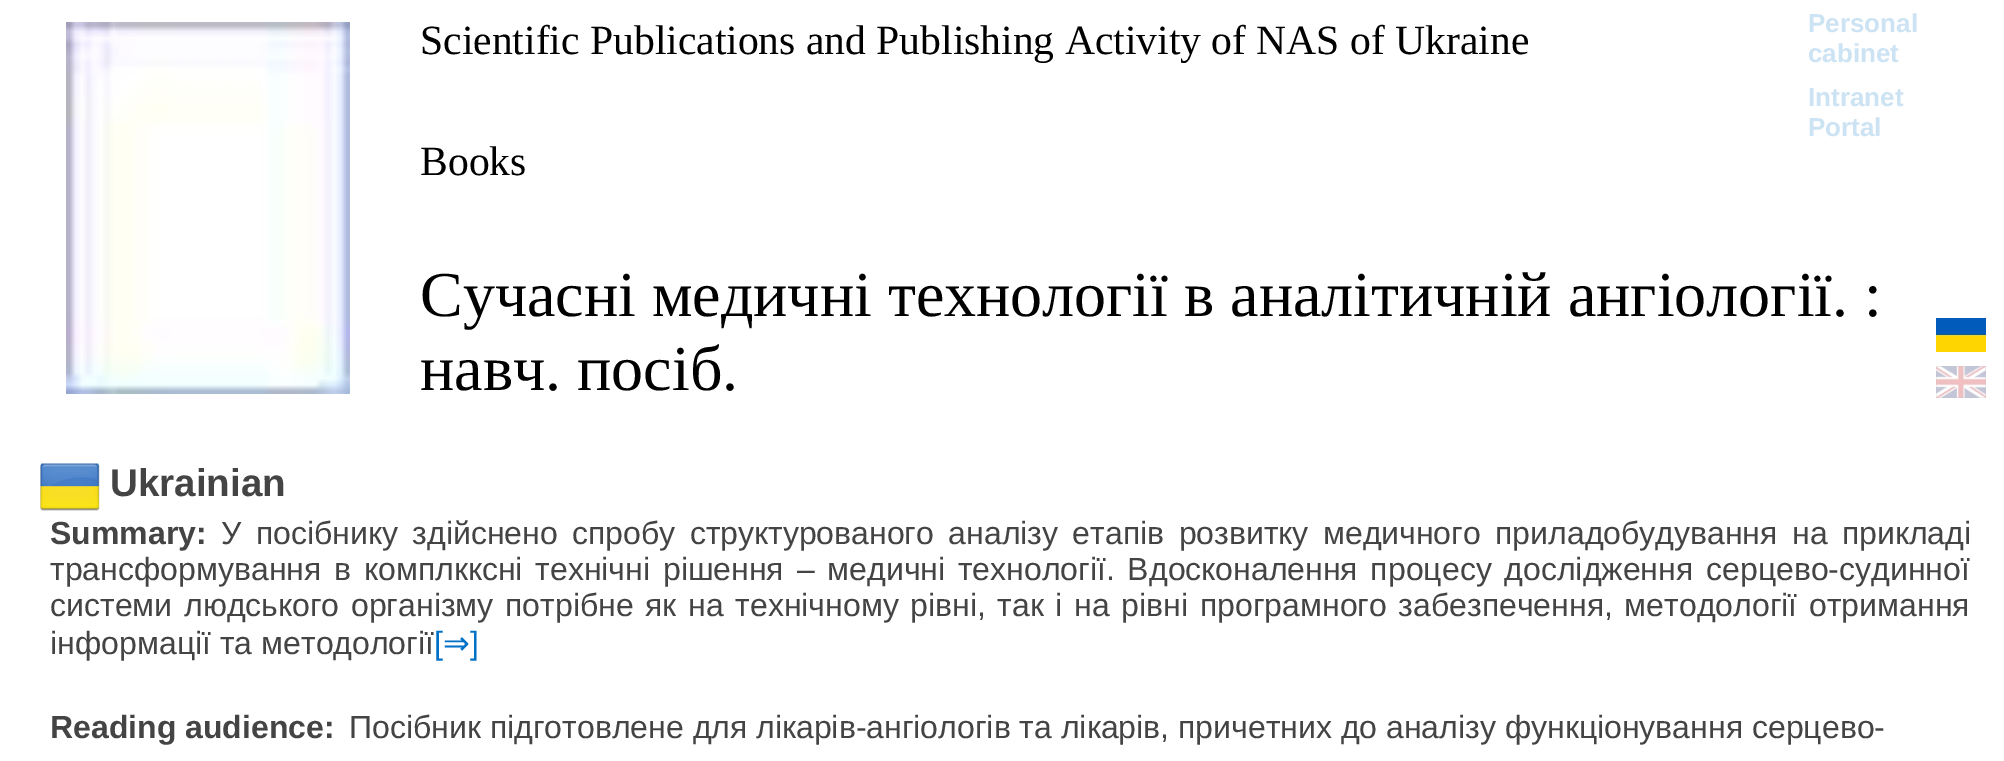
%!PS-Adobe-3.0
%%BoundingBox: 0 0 2004 761
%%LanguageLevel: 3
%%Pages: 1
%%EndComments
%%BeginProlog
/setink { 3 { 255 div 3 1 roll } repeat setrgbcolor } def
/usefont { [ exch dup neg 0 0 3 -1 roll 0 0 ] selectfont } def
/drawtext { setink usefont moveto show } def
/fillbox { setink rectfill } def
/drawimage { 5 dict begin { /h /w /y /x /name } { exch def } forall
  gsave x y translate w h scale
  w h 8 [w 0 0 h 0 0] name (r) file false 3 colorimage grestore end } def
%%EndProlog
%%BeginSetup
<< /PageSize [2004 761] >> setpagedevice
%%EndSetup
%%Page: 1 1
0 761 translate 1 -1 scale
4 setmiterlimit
0 0 2004 761 255 255 255 fillbox
(assets/img1.rgb) 66 22 284 372 drawimage
(Scientific Publications and Publishing Activity of NAS of Ukraine) 420 54 /LiberationSerif-Regular 41.6 0 0 0 drawtext
(Personal) 1808 32 /LiberationSans-Bold 26 204 227 244 drawtext
(cabinet) 1808 62 /LiberationSans-Bold 26 204 227 244 drawtext
(Intranet) 1808 106 /LiberationSans-Bold 26 204 227 244 drawtext
(Portal) 1808 136 /LiberationSans-Bold 26 204 227 244 drawtext
(Books) 420 175 /LiberationSerif-Regular 41.6 0 0 0 drawtext
(assets/img2.rgb) 1936 318 50 34 drawimage
(assets/img3.rgb) 1936 366 50 32 drawimage
(Сучасні медичні технології в аналітичній ангіології. :) 420 316 /LiberationSerif-Regular 64 0 0 0 drawtext
(навч. посіб.) 420 390 /LiberationSerif-Regular 64 0 0 0 drawtext
(assets/img4.rgb) 40 463 60 48 drawimage
(Ukrainian) 110 496 /LiberationSans-Bold 38.5 68 68 68 drawtext
(Summary:) 50 544 /LiberationSans-Bold 32 68 68 68 drawtext
/LiberationSans-Regular 32 usefont
221 544 moveto 5.5 0 32 (У посібнику здійснено спробу структурованого аналізу етапів розвитку медичного приладобудування на прикладі) widthshow
50 580 moveto 3.9 0 32 (трансформування в комплкксні технічні рішення – медичні технології. Вдосконалення процесу дослідження серцево-судинної) widthshow
50 616 moveto 2.75 0 32 (системи людського організму потрібне як на технічному рівні, так і на рівні програмного забезпечення, методології отримання) widthshow
(інформації та методології) 50 654 /LiberationSans-Regular 32 68 68 68 drawtext
([) 434 654 /LiberationSans-Regular 32 0 114 198 drawtext
(⇒) 443 654 /DejaVuSans-Regular 32 0 114 198 drawtext
(]) 470 654 /LiberationSans-Regular 32 0 114 198 drawtext
(Reading audience:) 50 738 /LiberationSans-Bold 32 68 68 68 drawtext
(Посібник підготовлене для лікарів-ангіологів та лікарів, причетних до аналізу функціонування серцево-) 349 738 /LiberationSans-Regular 32 68 68 68 drawtext
showpage
%%EOF
